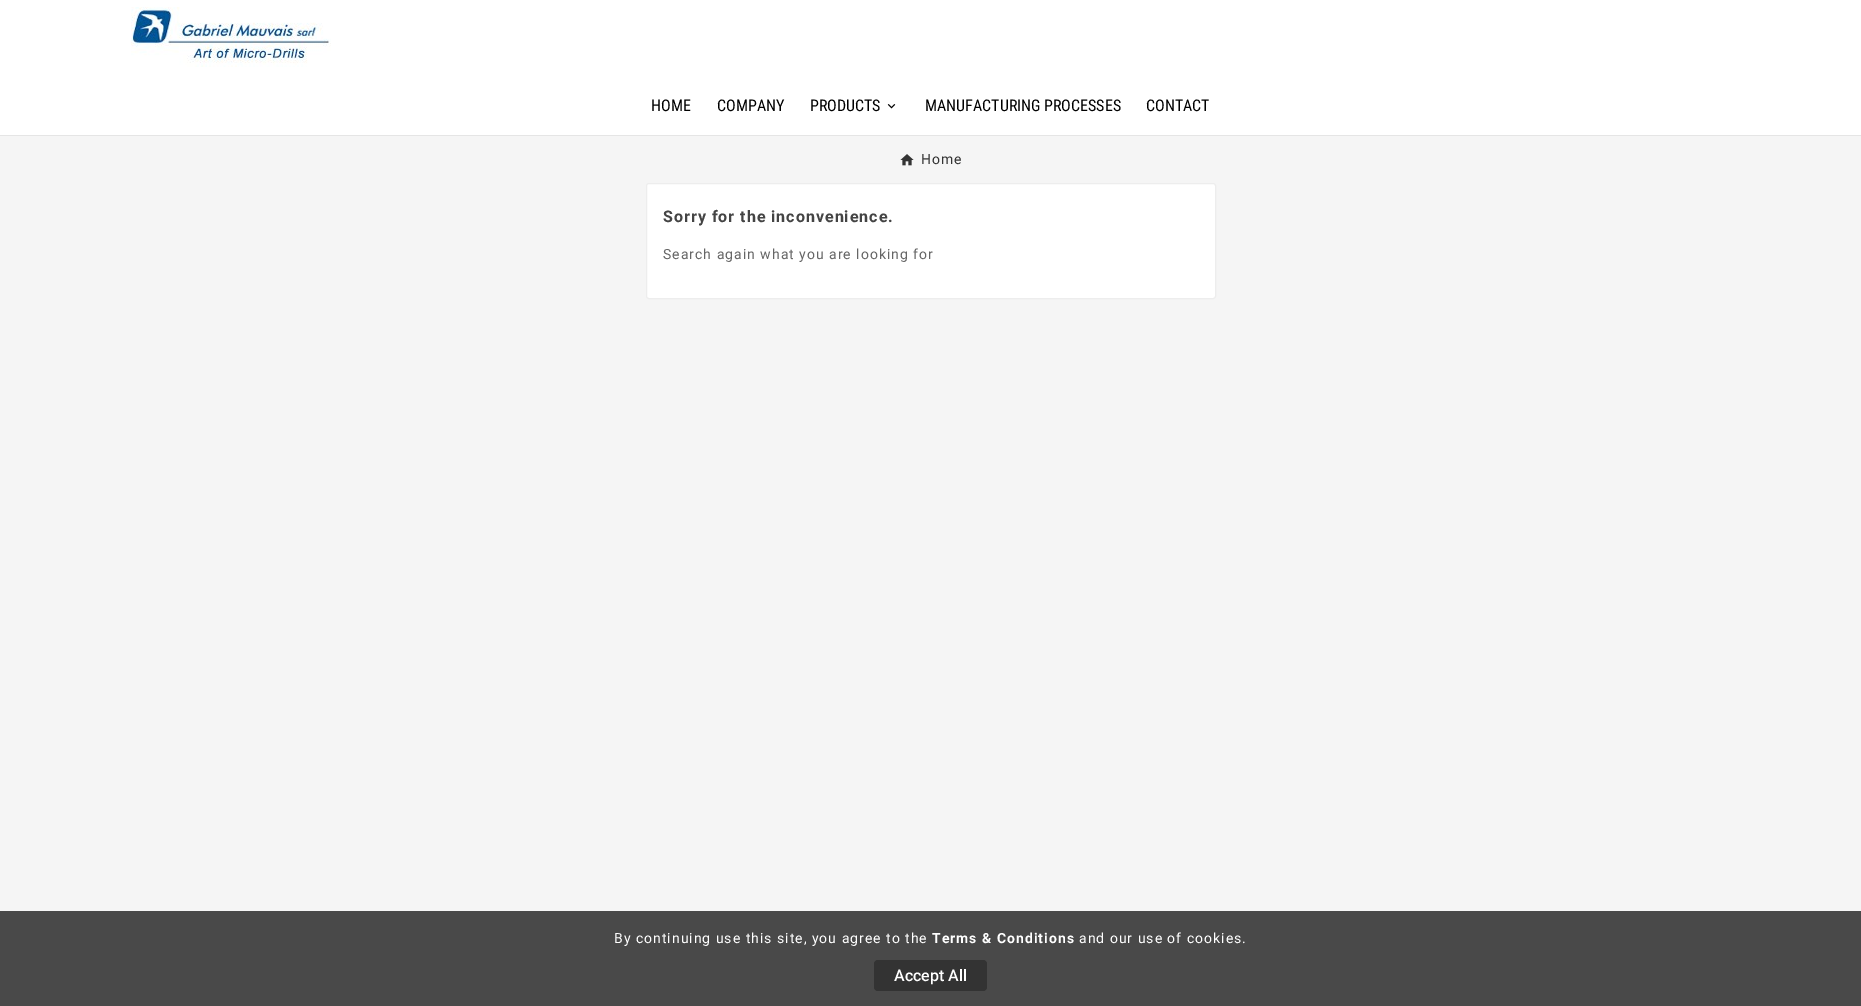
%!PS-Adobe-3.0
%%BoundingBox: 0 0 1861 1006
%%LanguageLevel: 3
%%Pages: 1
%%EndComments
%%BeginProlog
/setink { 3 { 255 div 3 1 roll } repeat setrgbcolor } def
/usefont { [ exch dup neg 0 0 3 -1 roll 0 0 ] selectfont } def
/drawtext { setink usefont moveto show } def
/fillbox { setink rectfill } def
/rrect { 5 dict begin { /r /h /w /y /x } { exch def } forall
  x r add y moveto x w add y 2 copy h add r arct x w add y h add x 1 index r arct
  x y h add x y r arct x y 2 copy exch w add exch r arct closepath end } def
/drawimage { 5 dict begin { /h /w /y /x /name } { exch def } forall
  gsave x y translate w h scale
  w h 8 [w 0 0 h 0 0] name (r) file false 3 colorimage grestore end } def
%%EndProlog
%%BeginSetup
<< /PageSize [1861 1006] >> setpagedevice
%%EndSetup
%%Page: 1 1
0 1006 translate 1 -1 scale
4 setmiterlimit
0 0 1861 1006 245 245 245 fillbox
0 0 1861 135 255 255 255 fillbox
0 135 1861 1 229 229 229 fillbox
(assets/img1.rgb) 131 7 200 60 drawimage
(HOME) 651 111 /RobotoCondensed-Regular 16 0 0 0 drawtext
(COMPANY) 717 111 /RobotoCondensed-Regular 16 0 0 0 drawtext
(PRODUCTS) 810 111 /RobotoCondensed-Regular 16 0 0 0 drawtext
(assets/img2.rgb) 887 104 9 5 drawimage
(MANUFACTURING PROCESSES) 925 111 /RobotoCondensed-Regular 16 0 0 0 drawtext
(CONTACT) 1146 111 /RobotoCondensed-Regular 16 0 0 0 drawtext
(assets/img3.rgb) 900 154 14 12 drawimage
/Roboto-Regular 14 usefont
51 51 51 setink
921 164 moveto 1 0 (Home) ashow
255 255 255 setink
646.5 183.5 569 115 2.5 rrect gsave fill grestore
237 237 237 setink
stroke
/Roboto-Bold 16 usefont
68 68 68 setink
663 222 moveto 1 0 (Sorry for the inconvenience.) ashow
/Roboto-Regular 14 usefont
102 102 102 setink
663 259 moveto 1 0 (Search again what you are looking for) ashow
0 911 1861 95 73 73 73 fillbox
255 255 255 setink
614 943 moveto 1 0 (By continuing use this site, you agree to the) ashow
/Roboto-Bold 14 usefont
932 943 moveto 1 0 (Terms & Conditions) ashow
/Roboto-Regular 14 usefont
1079 943 moveto 1 0 (and our use of cookies.) ashow
51 51 51 setink
874 960 113 31 4 rrect fill
(Accept All) 894 981 /Roboto-Medium 16 255 255 255 drawtext
showpage
%%EOF
